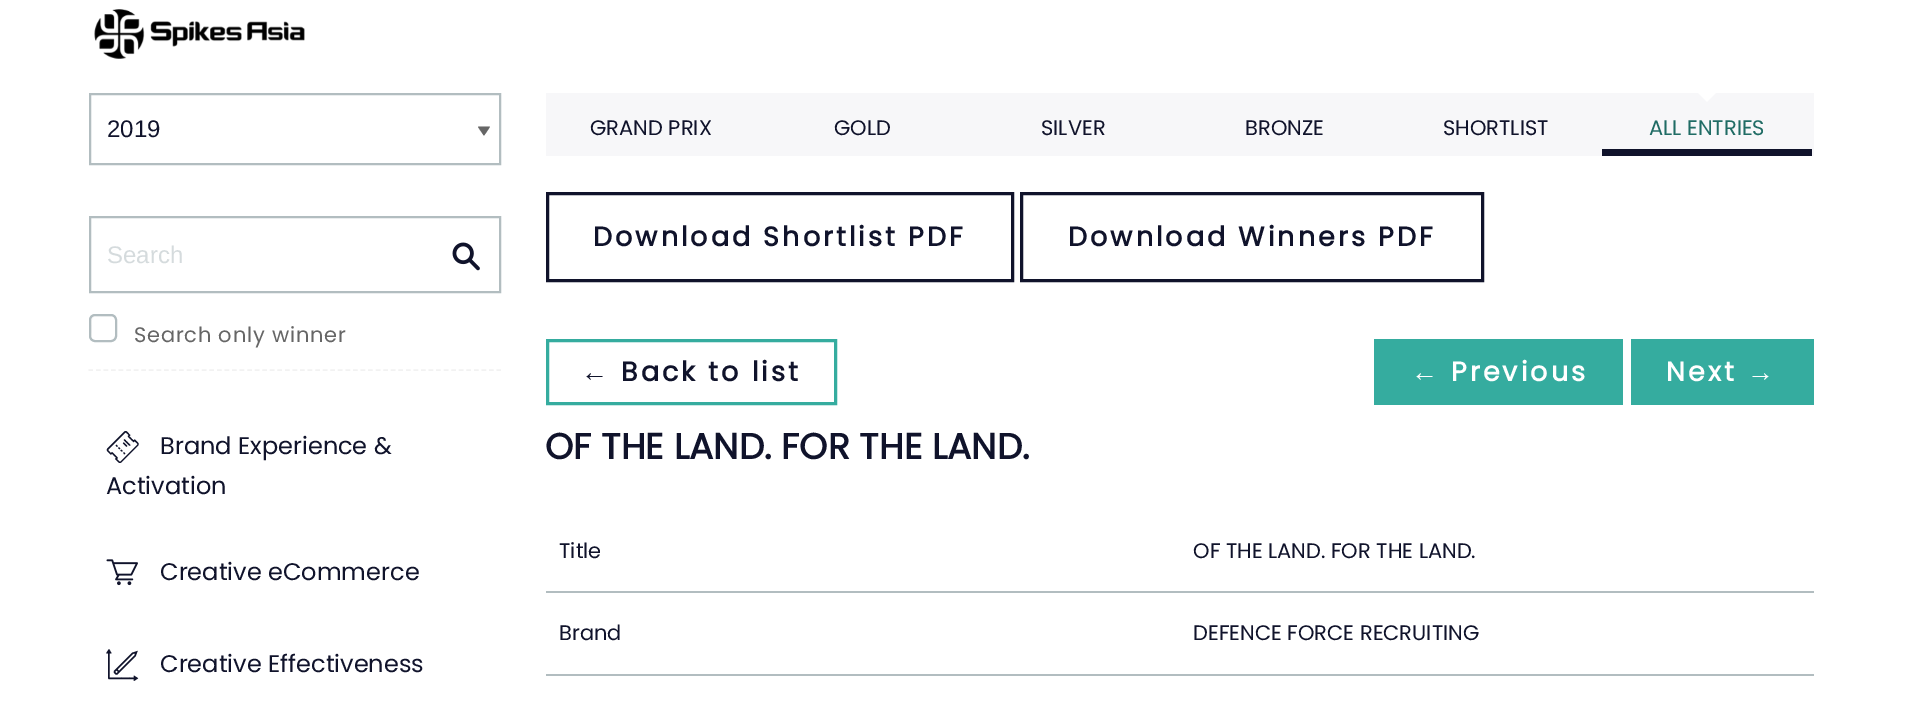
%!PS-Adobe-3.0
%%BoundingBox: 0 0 1915 702
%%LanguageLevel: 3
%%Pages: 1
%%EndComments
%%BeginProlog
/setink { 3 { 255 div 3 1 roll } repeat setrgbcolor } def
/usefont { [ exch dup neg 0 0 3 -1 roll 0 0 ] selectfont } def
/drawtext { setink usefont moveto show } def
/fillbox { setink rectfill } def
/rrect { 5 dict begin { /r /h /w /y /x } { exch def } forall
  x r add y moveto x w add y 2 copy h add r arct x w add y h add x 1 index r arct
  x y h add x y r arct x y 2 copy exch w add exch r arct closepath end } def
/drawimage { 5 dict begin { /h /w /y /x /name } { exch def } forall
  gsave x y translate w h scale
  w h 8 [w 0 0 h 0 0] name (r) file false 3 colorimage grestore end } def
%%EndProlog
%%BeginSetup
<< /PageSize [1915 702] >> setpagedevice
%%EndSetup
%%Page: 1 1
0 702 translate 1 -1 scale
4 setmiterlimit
0 0 1915 702 255 255 255 fillbox
(assets/img1.rgb) 94 9 211 50 drawimage
178 189 192 setink
2 setlinewidth
90 94 410 70 rectstroke
(2019) 107 137 /LiberationSans-Regular 24 16 19 43 drawtext
/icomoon-Regular 12 usefont
102 102 102 setink
gsave 478 125 translate 90 rotate 0 0 moveto (9) show grestore
242 242 242 setink
1.5 setlinewidth
[4.5 3.06] 0 setdash
88.5 370 moveto 501 370 lineto stroke
178 189 192 setink
2 setlinewidth
[] 0 setdash
90 217 410 75 rectstroke
(Search) 107 263 /LiberationSans-Regular 24 213 219 221 drawtext
(assets/img2.rgb) 452 242 28 29 drawimage
247 247 247 setink
96 316 moveto 114 317 lineto 115.5 318 lineto 115 316 113 315 111 315 curveto 95 315 lineto 92 315 90 317 90 320 curveto 90 336 lineto 90 337.5 91 339 92 340 curveto 91.5 339 91.5 337.5 91.5 336.5 curveto 92 329 lineto 91.5 321.5 lineto 92.5 318.5 lineto 93 317 94.5 316 96 316 curveto closepath fill
178 189 192 setink
90 315 26 26 5 rrect stroke
/Poppins-Regular 21 usefont
102 102 102 setink
134 342 moveto 0.75 0 (Search only winner) ashow
(:) 106 463 /icomoon-Regular 32 16 19 43 drawtext
(Brand Experience &) 160 454 /Poppins-Regular 24 16 19 43 drawtext
(Activation) 106 494 /Poppins-Regular 24 16 19 43 drawtext
(assets/img3.rgb) 106 559 32 27 drawimage
(Creative eCommerce) 160 580 /Poppins-Regular 24 16 19 43 drawtext
(') 106 681 /icomoon-Regular 32 16 19 43 drawtext
(Creative Effectiveness) 160 672 /Poppins-Regular 24 16 19 43 drawtext
546 93 1268 63 247 247 249 fillbox
(GRAND PRIX) 590 135 /Poppins-Regular 21 16 19 43 drawtext
(GOLD) 834 135 /Poppins-Regular 21 16 19 43 drawtext
(SILVER) 1041 135 /Poppins-Regular 21 16 19 43 drawtext
(BRONZE) 1245 135 /Poppins-Regular 21 16 19 43 drawtext
(SHORTLIST) 1443 135 /Poppins-Regular 21 16 19 43 drawtext
1602 149 210 7 16 19 43 fillbox
255 255 255 setink
1698 93 moveto 1716 93 lineto 1707 102 lineto closepath fill
(ALL ENTRIES) 1649 135 /Poppins-Regular 21 32 108 101 drawtext
16 19 43 setink
3 setlinewidth
547.5 193.5 465 87 rectstroke
/Poppins-Bold 27 usefont
593 246 moveto 3 0 (Download Shortlist PDF) ashow
1021.5 193.5 461 87 rectstroke
1068 246 moveto 3 0 (Download Winners PDF) ashow
53 172 159 setink
547.5 340.5 288 63 rectstroke
/LiberationSans-Bold 27 usefont
16 19 43 setink
581 381 moveto 3 0 (←) ashow
/Poppins-Bold 27 usefont
621 381 moveto 3 0 (Back to list) ashow
1374 339 249 66 53 172 159 fillbox
/LiberationSans-Bold 27 usefont
255 255 255 setink
1411 381 moveto 3 0 (←) ashow
/Poppins-Bold 27 usefont
1451 381 moveto 3 0 (Previous) ashow
1631 339 183 66 53 172 159 fillbox
255 255 255 setink
1666 381 moveto 3 0 (Next) ashow
/LiberationSans-Bold 27 usefont
1747 381 moveto 3 0 (→) ashow
(OF THE LAND. FOR THE LAND.) 545 459 /Poppins-Bold 36 16 19 43 drawtext
(Title) 559 558 /Poppins-Regular 21 16 19 43 drawtext
(OF THE LAND. FOR THE LAND.) 1193 558 /Poppins-Regular 21 16 19 43 drawtext
546 591 1268 2 178 189 192 fillbox
(Brand) 559 640 /Poppins-Regular 21 16 19 43 drawtext
(DEFENCE FORCE RECRUITING) 1193 640 /Poppins-Regular 21 16 19 43 drawtext
546 674 1268 2 178 189 192 fillbox
showpage
%%EOF
